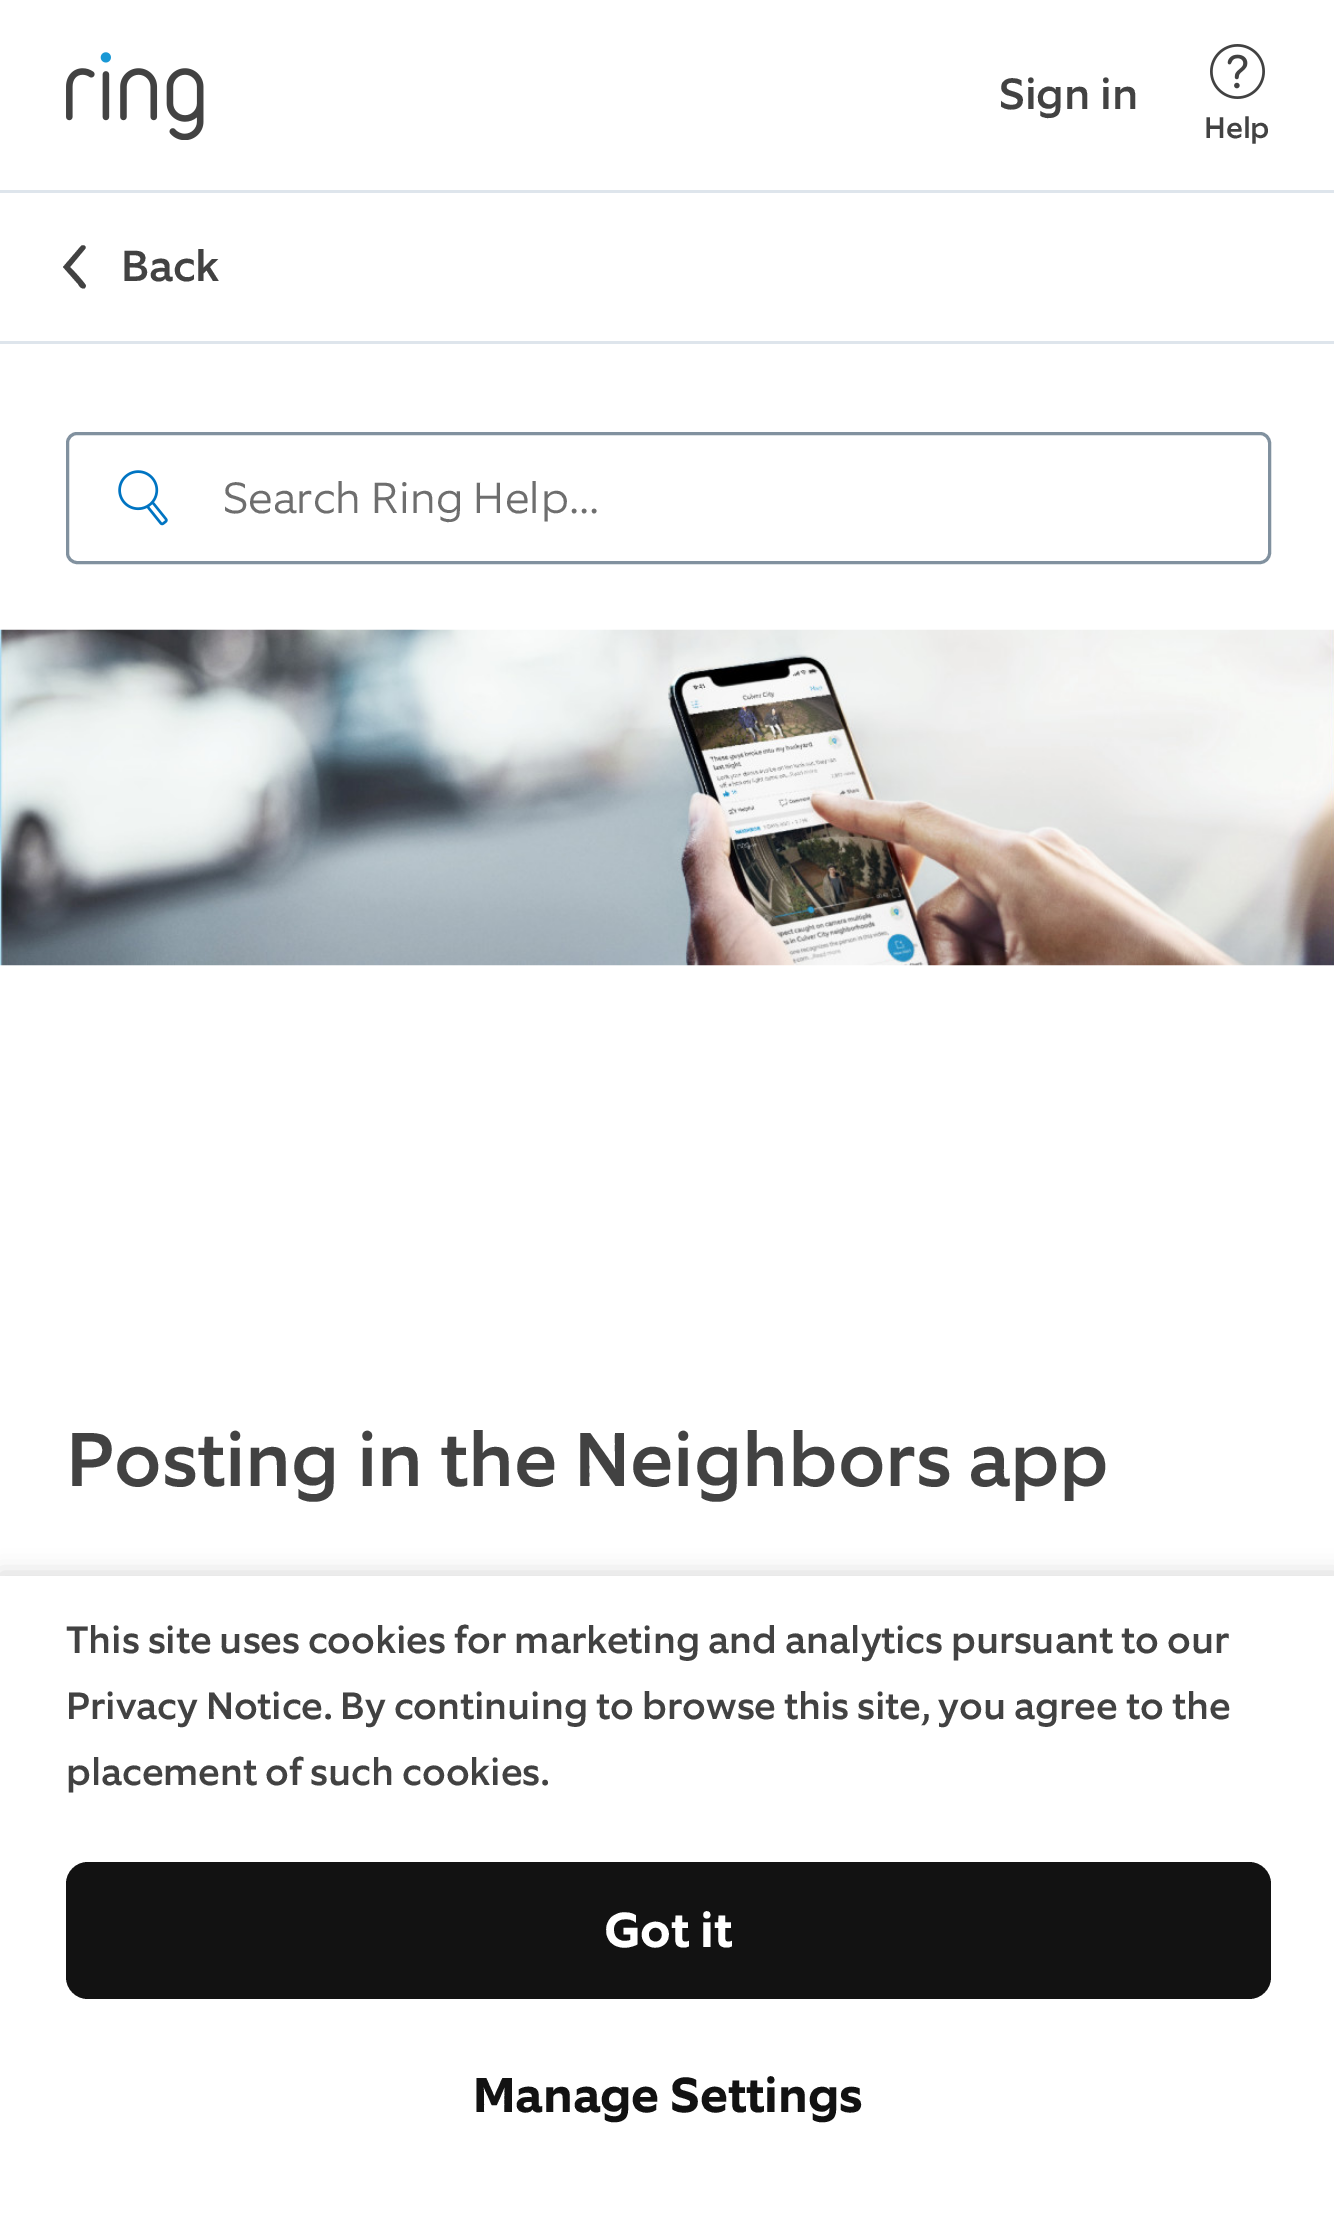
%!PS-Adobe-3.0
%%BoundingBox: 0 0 1334 2224
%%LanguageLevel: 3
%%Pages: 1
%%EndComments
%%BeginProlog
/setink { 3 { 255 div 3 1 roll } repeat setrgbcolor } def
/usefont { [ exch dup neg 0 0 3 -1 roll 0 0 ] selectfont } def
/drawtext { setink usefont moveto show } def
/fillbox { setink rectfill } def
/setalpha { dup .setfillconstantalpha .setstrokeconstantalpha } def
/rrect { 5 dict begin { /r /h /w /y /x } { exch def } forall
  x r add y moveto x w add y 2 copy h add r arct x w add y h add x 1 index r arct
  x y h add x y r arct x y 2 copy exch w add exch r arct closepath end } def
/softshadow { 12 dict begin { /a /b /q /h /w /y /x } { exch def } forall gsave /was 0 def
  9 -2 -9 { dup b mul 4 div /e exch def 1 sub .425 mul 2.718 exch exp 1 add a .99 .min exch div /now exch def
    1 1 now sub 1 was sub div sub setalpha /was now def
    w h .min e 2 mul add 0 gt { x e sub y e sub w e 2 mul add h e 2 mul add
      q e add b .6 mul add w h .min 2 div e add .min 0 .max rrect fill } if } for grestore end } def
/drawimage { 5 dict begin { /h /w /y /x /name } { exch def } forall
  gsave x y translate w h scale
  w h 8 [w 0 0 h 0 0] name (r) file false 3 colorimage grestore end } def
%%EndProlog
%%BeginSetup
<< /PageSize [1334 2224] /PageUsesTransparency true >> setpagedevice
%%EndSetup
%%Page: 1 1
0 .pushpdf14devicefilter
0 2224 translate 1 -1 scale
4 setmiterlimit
0 0 1334 2224 255 255 255 fillbox
0 190 1334 3 222 229 236 fillbox
(assets/img1.rgb) 66 52 138 88 drawimage
(Sign in) 999 109 /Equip-Medium 44 66 66 66 drawtext
(assets/img2.rgb) 1210 44 55 55 drawimage
(Help) 1204 138 /Equip-Medium 30 66 66 66 drawtext
0 341 1334 3 222 229 236 fillbox
66 66 66 setink
63 267 moveto 81 246 lineto 82 245 84 245 85 246 curveto 86 247 86 248 85 249 curveto 70 267 lineto 73 270 86 284 86 286 curveto 85 288 lineto 82 290 79 286 78 284 curveto closepath fill
(Back) 121 281 /Equip-Medium 44 66 66 66 drawtext
129 145 159 setink
3 setlinewidth
67.5 433.5 1202 129 9.5 rrect stroke
(assets/img3.rgb) 118 470 50 56 drawimage
(Search Ring Help...) 223 513 /Equip-Light 44 110 110 110 drawtext
(assets/img4.rgb) 0 629 1334 337 drawimage
(Posting in the Neighbors app) 66 1486 /Equip-Medium 77 66 66 66 drawtext
0 0 0 setink
0 1573 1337 649 0 11 0.15 softshadow
0 1576 1334 648 255 255 255 fillbox
(This site uses cookies for marketing and analytics pursuant to our) 66 1653 /Equip-Medium 38.5 66 66 66 drawtext
(Privacy Notice. By continuing to browse this site, you agree to the) 66 1719 /Equip-Medium 38.5 66 66 66 drawtext
(placement of such cookies.) 66 1785 /Equip-Medium 38.5 66 66 66 drawtext
18 18 18 setink
66 1862 1205 137 22 rrect fill
(Got it) 604 1947 /Equip-Bold 49.5 255 255 255 drawtext
(Manage Settings) 473 2112 /Equip-Bold 49.5 18 18 18 drawtext
.poppdf14devicefilter showpage
%%EOF
